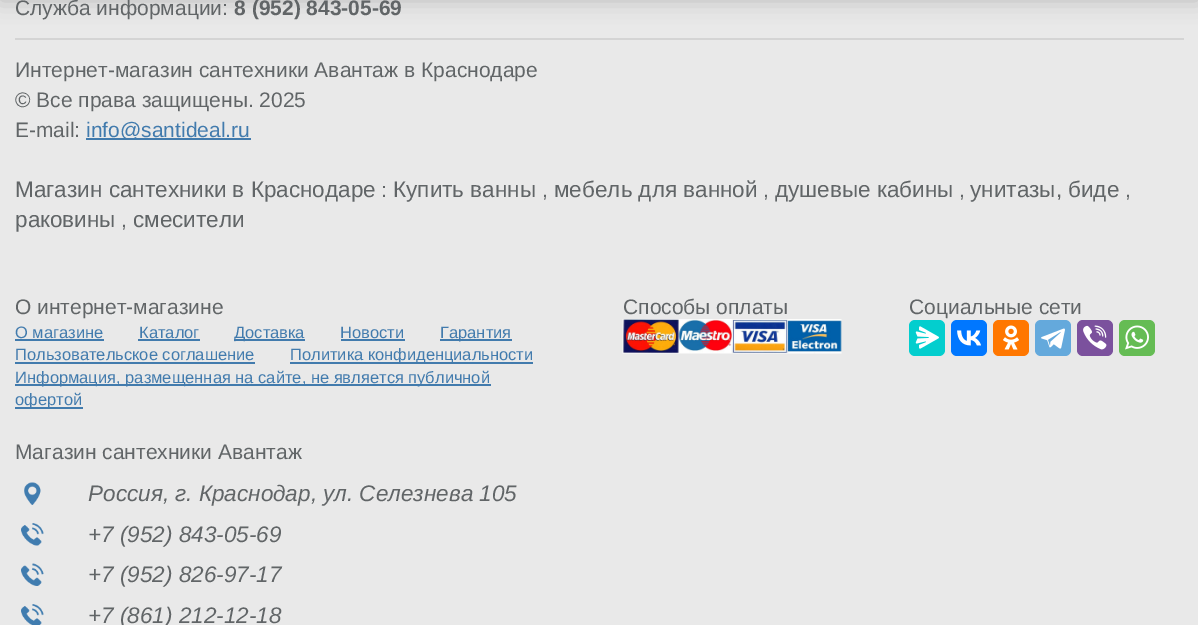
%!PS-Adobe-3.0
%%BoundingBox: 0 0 1198 625
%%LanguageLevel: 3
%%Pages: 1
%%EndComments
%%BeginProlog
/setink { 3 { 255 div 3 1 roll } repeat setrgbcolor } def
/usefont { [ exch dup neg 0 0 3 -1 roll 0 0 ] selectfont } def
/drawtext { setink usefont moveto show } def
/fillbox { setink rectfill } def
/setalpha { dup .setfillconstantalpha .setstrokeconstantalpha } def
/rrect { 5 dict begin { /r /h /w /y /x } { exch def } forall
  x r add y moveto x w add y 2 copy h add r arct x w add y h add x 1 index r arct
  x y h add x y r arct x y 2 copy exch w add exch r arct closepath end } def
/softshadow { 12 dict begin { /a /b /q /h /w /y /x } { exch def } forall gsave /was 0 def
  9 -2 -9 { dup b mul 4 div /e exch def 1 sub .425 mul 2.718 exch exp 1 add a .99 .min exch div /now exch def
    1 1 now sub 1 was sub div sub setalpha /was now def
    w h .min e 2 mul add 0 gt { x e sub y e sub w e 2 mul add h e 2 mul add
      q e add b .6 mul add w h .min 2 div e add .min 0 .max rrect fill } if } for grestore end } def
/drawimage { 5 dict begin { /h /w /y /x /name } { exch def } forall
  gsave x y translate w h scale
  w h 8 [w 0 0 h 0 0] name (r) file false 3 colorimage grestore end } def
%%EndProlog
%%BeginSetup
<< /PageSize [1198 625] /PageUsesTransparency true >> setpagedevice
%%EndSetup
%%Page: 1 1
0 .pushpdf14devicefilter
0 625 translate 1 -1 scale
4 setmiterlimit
0 0 1198 625 233 233 233 fillbox
0 0 0 setink
0 -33 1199 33 0 11 0.2 softshadow
15 38 1169 2 212 212 212 fillbox
(Служба информации:) 15 15 /LiberationSans-Regular 21 97 101 103 drawtext
(8 \(952\) 843-05-69) 234 15 /LiberationSans-Bold 21 97 101 103 drawtext
(Интернет-магазин сантехники Авантаж в Краснодаре) 15 77 /LiberationSans-Regular 21 97 101 103 drawtext
(© Все права защищены. 2025) 15 107 /LiberationSans-Regular 21 97 101 103 drawtext
(E-mail:) 15 137 /LiberationSans-Regular 21 97 101 103 drawtext
86 138 165 2 66 123 173 fillbox
(info@santideal.ru) 86 137 /LiberationSans-Regular 21 66 123 173 drawtext
(Магазин сантехники в Краснодаре) 15 197 /LiberationSans-Regular 22.5 97 101 103 drawtext
(:) 381 197 /LiberationSans-Regular 21 97 101 103 drawtext
(Купить ванны) 393 197 /LiberationSans-Regular 22.5 97 101 103 drawtext
(,) 542 197 /LiberationSans-Regular 21 97 101 103 drawtext
(мебель для ванной) 554 197 /LiberationSans-Regular 22.5 97 101 103 drawtext
(,) 763 197 /LiberationSans-Regular 21 97 101 103 drawtext
(душевые кабины) 775 197 /LiberationSans-Regular 22.5 97 101 103 drawtext
(,) 959 197 /LiberationSans-Regular 21 97 101 103 drawtext
(унитазы, биде) 970 197 /LiberationSans-Regular 22.5 97 101 103 drawtext
(,) 1125 197 /LiberationSans-Regular 21 97 101 103 drawtext
(раковины) 15 227 /LiberationSans-Regular 22.5 97 101 103 drawtext
(,) 121 227 /LiberationSans-Regular 21 97 101 103 drawtext
(смесители) 133 227 /LiberationSans-Regular 22.5 97 101 103 drawtext
(О интернет-магазине) 15 314 /LiberationSans-Regular 21 97 101 103 drawtext
(О магазине) 15 338 /LiberationSans-Regular 16.5 66 123 173 drawtext
15 339 89 2 66 123 173 fillbox
(Каталог) 139 338 /LiberationSans-Regular 16.5 66 123 173 drawtext
138 339 62 2 66 123 173 fillbox
234 339 71 2 66 123 173 fillbox
(Доставка) 234 338 /LiberationSans-Regular 16.5 66 123 173 drawtext
(Новости) 340 338 /LiberationSans-Regular 16.5 66 123 173 drawtext
341 339 64 2 66 123 173 fillbox
440 339 72 2 66 123 173 fillbox
(Гарантия) 440 338 /LiberationSans-Regular 16.5 66 123 173 drawtext
(Пользовательское соглашение) 15 360 /LiberationSans-Regular 16.5 66 123 173 drawtext
15 362 240 2 66 123 173 fillbox
290 362 243 2 66 123 173 fillbox
(Политика конфиденциальности) 290 360 /LiberationSans-Regular 16.5 66 123 173 drawtext
15 384 476 2 66 123 173 fillbox
(Информация, размещенная на сайте, не является публичной) 15 383 /LiberationSans-Regular 16.5 66 123 173 drawtext
15 407 68 2 66 123 173 fillbox
(офертой) 15 405 /LiberationSans-Regular 16.5 66 123 173 drawtext
(Магазин сантехники Авантаж) 15 459 /LiberationSans-Regular 21 97 101 103 drawtext
(assets/img1.rgb) 24 482 17 23 drawimage
(Россия, г. Краснодар, ул. Селезнева 105) 88 501 /LiberationSans-Italic 22.5 97 101 103 drawtext
(assets/img2.rgb) 21 523 23 23 drawimage
(+7 \(952\) 843-05-69) 88 542 /LiberationSans-Italic 22.5 97 101 103 drawtext
(assets/img3.rgb) 21 563 23 23 drawimage
(+7 \(952\) 826-97-17) 88 582 /LiberationSans-Italic 22.5 97 101 103 drawtext
(assets/img4.rgb) 21 604 23 21 drawimage
(+7 \(861\) 212-12-18) 88 623 /LiberationSans-Italic 22.5 97 101 103 drawtext
(Cпособы оплаты) 623 314 /LiberationSans-Regular 21 97 101 103 drawtext
(assets/img5.rgb) 622 319 220 35 drawimage
(Социальные сети) 909 314 /LiberationSans-Regular 21 97 101 103 drawtext
3 206 206 setink
909 320 36 36 6 rrect fill
(assets/img6.rgb) 915 326 24 23 drawimage
0 119 255 setink
951 320 36 36 6 rrect fill
(assets/img7.rgb) 957 330 24 16 drawimage
255 119 0 setink
993 320 36 36 6 rrect fill
(assets/img8.rgb) 1003 325 16 25 drawimage
100 169 220 setink
1035 320 36 36 6 rrect fill
(assets/img9.rgb) 1041 328 24 21 drawimage
123 81 157 setink
1077 320 36 36 6 rrect fill
(assets/img10.rgb) 1083 325 24 25 drawimage
101 188 84 setink
1119 320 36 36 6 rrect fill
(assets/img11.rgb) 1125 325 24 25 drawimage
.poppdf14devicefilter showpage
%%EOF
